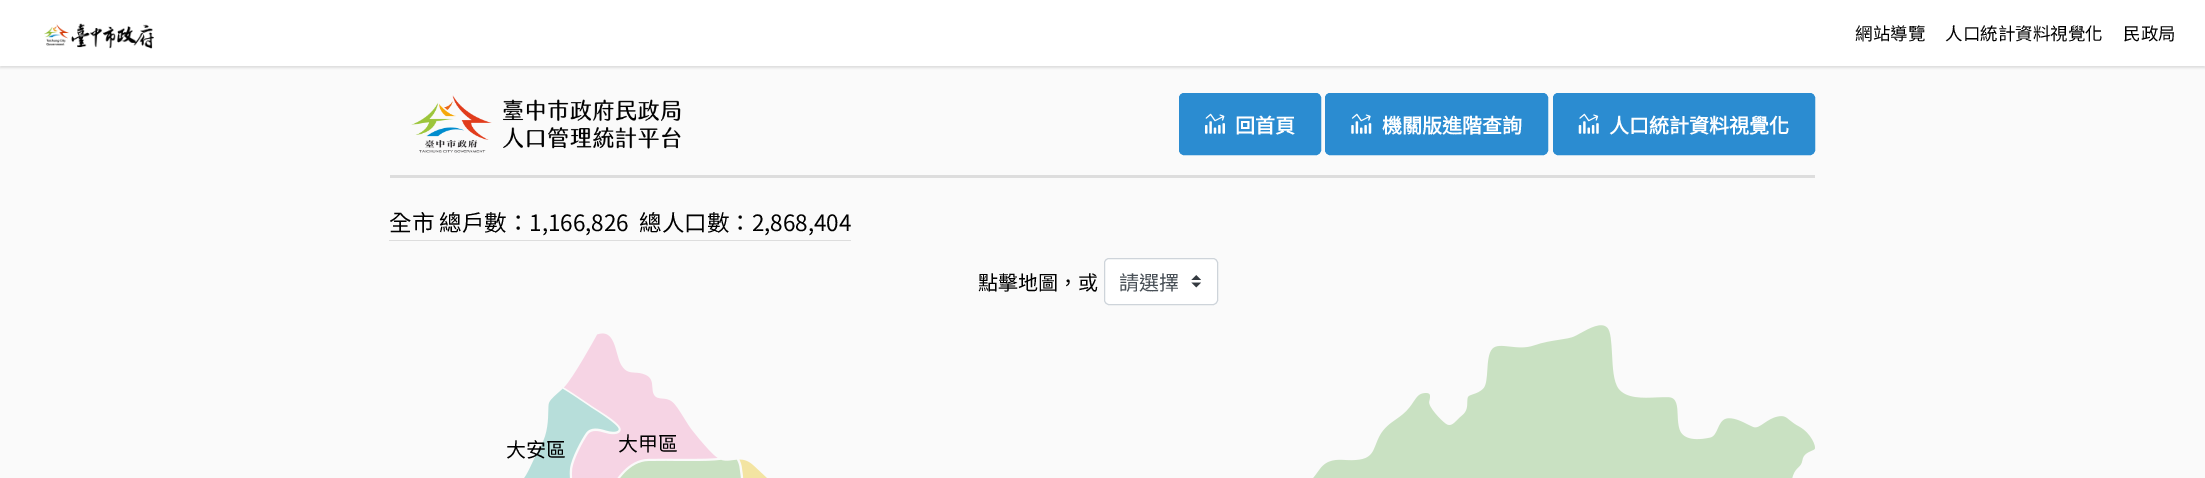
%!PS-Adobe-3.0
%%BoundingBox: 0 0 2205 478
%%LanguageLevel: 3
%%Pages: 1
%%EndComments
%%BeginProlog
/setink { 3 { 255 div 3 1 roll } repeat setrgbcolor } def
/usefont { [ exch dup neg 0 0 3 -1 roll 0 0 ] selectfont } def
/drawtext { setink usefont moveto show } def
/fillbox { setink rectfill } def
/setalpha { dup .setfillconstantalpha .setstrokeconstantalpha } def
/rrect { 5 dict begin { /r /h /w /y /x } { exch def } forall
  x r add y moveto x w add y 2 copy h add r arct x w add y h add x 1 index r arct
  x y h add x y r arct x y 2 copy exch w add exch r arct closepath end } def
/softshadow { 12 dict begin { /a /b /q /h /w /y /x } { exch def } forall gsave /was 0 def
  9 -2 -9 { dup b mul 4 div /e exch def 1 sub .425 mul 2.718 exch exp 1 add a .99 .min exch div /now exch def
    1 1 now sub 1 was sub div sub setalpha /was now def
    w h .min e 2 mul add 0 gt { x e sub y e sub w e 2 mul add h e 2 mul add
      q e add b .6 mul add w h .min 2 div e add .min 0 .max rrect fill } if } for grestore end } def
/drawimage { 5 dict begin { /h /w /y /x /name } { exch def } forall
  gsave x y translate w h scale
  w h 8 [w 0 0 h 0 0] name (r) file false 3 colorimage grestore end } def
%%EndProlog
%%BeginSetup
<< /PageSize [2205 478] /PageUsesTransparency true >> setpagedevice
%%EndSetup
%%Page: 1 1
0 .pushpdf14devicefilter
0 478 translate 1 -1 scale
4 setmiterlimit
0 0 2205 478 250 250 250 fillbox
221 221 221 setink
0 1 2205 67 0 1 1 softshadow
0 0 2205 66 255 255 255 fillbox
(assets/img1.rgb) 44 23 110 26 drawimage
(網站導覽) 1855 40 /NotoSansTC-Thin 17.5 0 0 0 drawtext
(人口統計資料視覺化) 1945 40 /NotoSansTC-Thin 17.5 0 0 0 drawtext
(民政局) 2123 40 /NotoSansTC-Thin 17.5 0 0 0 drawtext
390 175 1425 3 221 221 221 fillbox
(assets/img2.rgb) 411 95 270 58 drawimage
43 140 209 setink
1179.5 93.5 141 61 4.5 rrect gsave fill grestore
stroke
(assets/img3.rgb) 1205 113 20 21 drawimage
(回首頁) 1235 133 /NotoSansTC-Bold 20 255 255 255 drawtext
43 140 209 setink
1325.5 93.5 222 61 4.5 rrect gsave fill grestore
stroke
(assets/img4.rgb) 1351 113 21 21 drawimage
(機關版進階查詢) 1382 133 /NotoSansTC-Bold 20 255 255 255 drawtext
43 140 209 setink
1553.5 93.5 261 61 4.5 rrect gsave fill grestore
stroke
(assets/img5.rgb) 1578 113 21 21 drawimage
(人口統計資料視覺化) 1609 133 /NotoSansTC-Bold 20 255 255 255 drawtext
(全市 總戶數：1,166,826  總人口數：2,868,404) 389 231 /NotoSansTC-Thin 22.5 0 0 0 drawtext
389 240 462 1 221 221 221 fillbox
(點擊地圖，或) 978 290 /NotoSansTC-Thin 20 0 0 0 drawtext
255 255 255 setink
1104 258 114 47 5 rrect fill
(assets/img6.rgb) 1191 275 10 13 drawimage
206 212 218 setink
1104.5 258.5 113 46 4.5 rrect stroke
(請選擇) 1119 290 /NotoSansTC-Thin 20 73 80 87 drawtext
(assets/img7.rgb) 524 325 1291 153 drawimage
(大安區) 506 457 /NotoSansTC-Thin 20 0 0 0 drawtext
(大甲區) 618 451 /NotoSansTC-Thin 20 0 0 0 drawtext
.poppdf14devicefilter showpage
%%EOF
